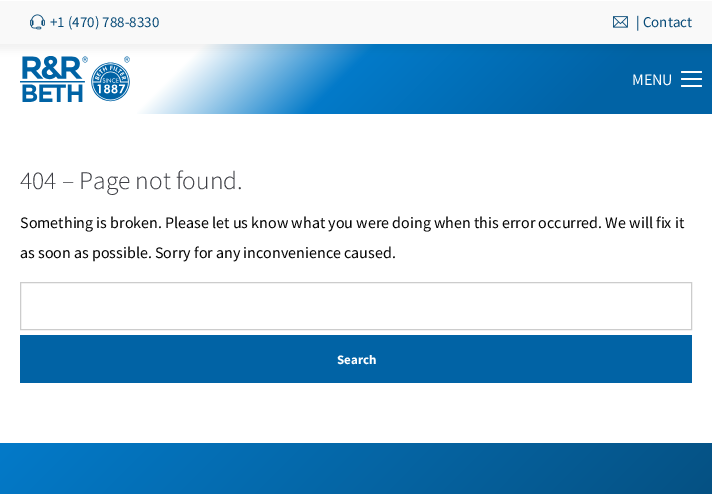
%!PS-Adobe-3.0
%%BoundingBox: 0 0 712 494
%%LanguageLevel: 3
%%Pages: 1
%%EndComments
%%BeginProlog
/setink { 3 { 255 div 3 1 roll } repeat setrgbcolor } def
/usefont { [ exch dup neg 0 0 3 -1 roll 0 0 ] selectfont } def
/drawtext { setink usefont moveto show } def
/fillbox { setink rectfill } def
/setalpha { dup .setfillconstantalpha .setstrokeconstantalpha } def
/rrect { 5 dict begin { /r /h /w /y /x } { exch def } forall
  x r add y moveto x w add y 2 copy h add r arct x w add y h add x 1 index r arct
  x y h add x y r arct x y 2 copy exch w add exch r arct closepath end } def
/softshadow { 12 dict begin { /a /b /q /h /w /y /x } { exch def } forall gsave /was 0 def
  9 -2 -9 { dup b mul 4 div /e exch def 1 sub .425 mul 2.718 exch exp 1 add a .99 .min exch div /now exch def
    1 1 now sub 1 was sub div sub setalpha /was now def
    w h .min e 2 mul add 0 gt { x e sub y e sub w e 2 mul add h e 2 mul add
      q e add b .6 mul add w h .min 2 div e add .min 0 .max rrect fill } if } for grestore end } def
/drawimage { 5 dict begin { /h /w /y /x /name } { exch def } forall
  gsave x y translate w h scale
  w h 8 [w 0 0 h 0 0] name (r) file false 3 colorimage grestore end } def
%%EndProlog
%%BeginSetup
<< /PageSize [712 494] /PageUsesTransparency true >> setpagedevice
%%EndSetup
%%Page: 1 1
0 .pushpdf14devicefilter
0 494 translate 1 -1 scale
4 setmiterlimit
0 0 712 494 255 255 255 fillbox
gsave 137 44 moveto 712 44 lineto 712 114 lineto 137 114 lineto closepath clip newpath
<< /ShadingType 2 /ColorSpace /DeviceRGB /Coords [552 275 161 -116] /Extend [true true] /Function << /FunctionType 3 /Domain [0 1] /Functions [<< /FunctionType 2 /Domain [0 1] /C0 [0.004 0.388 0.647] /C1 [0.004 0.388 0.647] /N 1 >> << /FunctionType 2 /Domain [0 1] /C0 [0.004 0.388 0.647] /C1 [0.012 0.478 0.788] /N 1 >> << /FunctionType 2 /Domain [0 1] /C0 [0.012 0.478 0.788] /C1 [1 1 1] /N 1 >> << /FunctionType 2 /Domain [0 1] /C0 [1 1 1] /C1 [1 1 1] /N 1 >>] /Bounds [0.17 0.52 0.74] /Encode [0 1 0 1 0 1 0 1] >> >> shfill grestore
(assets/img3.rgb) 20 56 110 46 drawimage
0 0 0 setink
-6 -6 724 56 0 4 0.05 softshadow
0 0 712 1 255 255 255 fillbox
0 1 712 43 249 249 249 fillbox
(assets/img1.rgb) 30 14 15 16 drawimage
(+1 \(470\) 788-8330) 50 27 /SourceSansPro-Regular 15 7 74 119 drawtext
(assets/img2.rgb) 613 16 15 12 drawimage
(| Contact) 636 27 /SourceSansPro-Regular 15 7 74 119 drawtext
(MENU) 632 85 /SourceSansPro-Regular 16 255 255 255 drawtext
681 78 21 2 1 rrect fill
681 71 21 2 1 rrect fill
681 85 21 2 1 rrect fill
(404 – Page not found.) 20 189 /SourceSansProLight-Light 25.5 59 60 66 drawtext
(Something is broken. Please let us know what you were doing when this error occurred. We will fix it) 20 228 /SourceSansPro-Regular 16 5 5 5 drawtext
(as soon as possible. Sorry for any inconvenience caused.) 20 258 /SourceSansPro-Regular 16 5 5 5 drawtext
204 204 204 setink
20.5 282.5 671 47 rectstroke
20 335 672 48 1 99 165 fillbox
(Search) 337 364 /SourceSansPro-Bold 13 255 255 255 drawtext
gsave 0 443 moveto 712 443 lineto 712 494 lineto 0 494 lineto closepath clip newpath
<< /ShadingType 2 /ColorSpace /DeviceRGB /Coords [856 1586 -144 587] /Extend [true true] /Function << /FunctionType 3 /Domain [0 1] /Functions [<< /FunctionType 2 /Domain [0 1] /C0 [0.027 0.29 0.467] /C1 [0.027 0.29 0.467] /N 1 >> << /FunctionType 2 /Domain [0 1] /C0 [0.027 0.29 0.467] /C1 [0.012 0.478 0.788] /N 1 >>] /Bounds [0.55] /Encode [0 1 0 1] >> >> shfill grestore
.poppdf14devicefilter showpage
%%EOF
